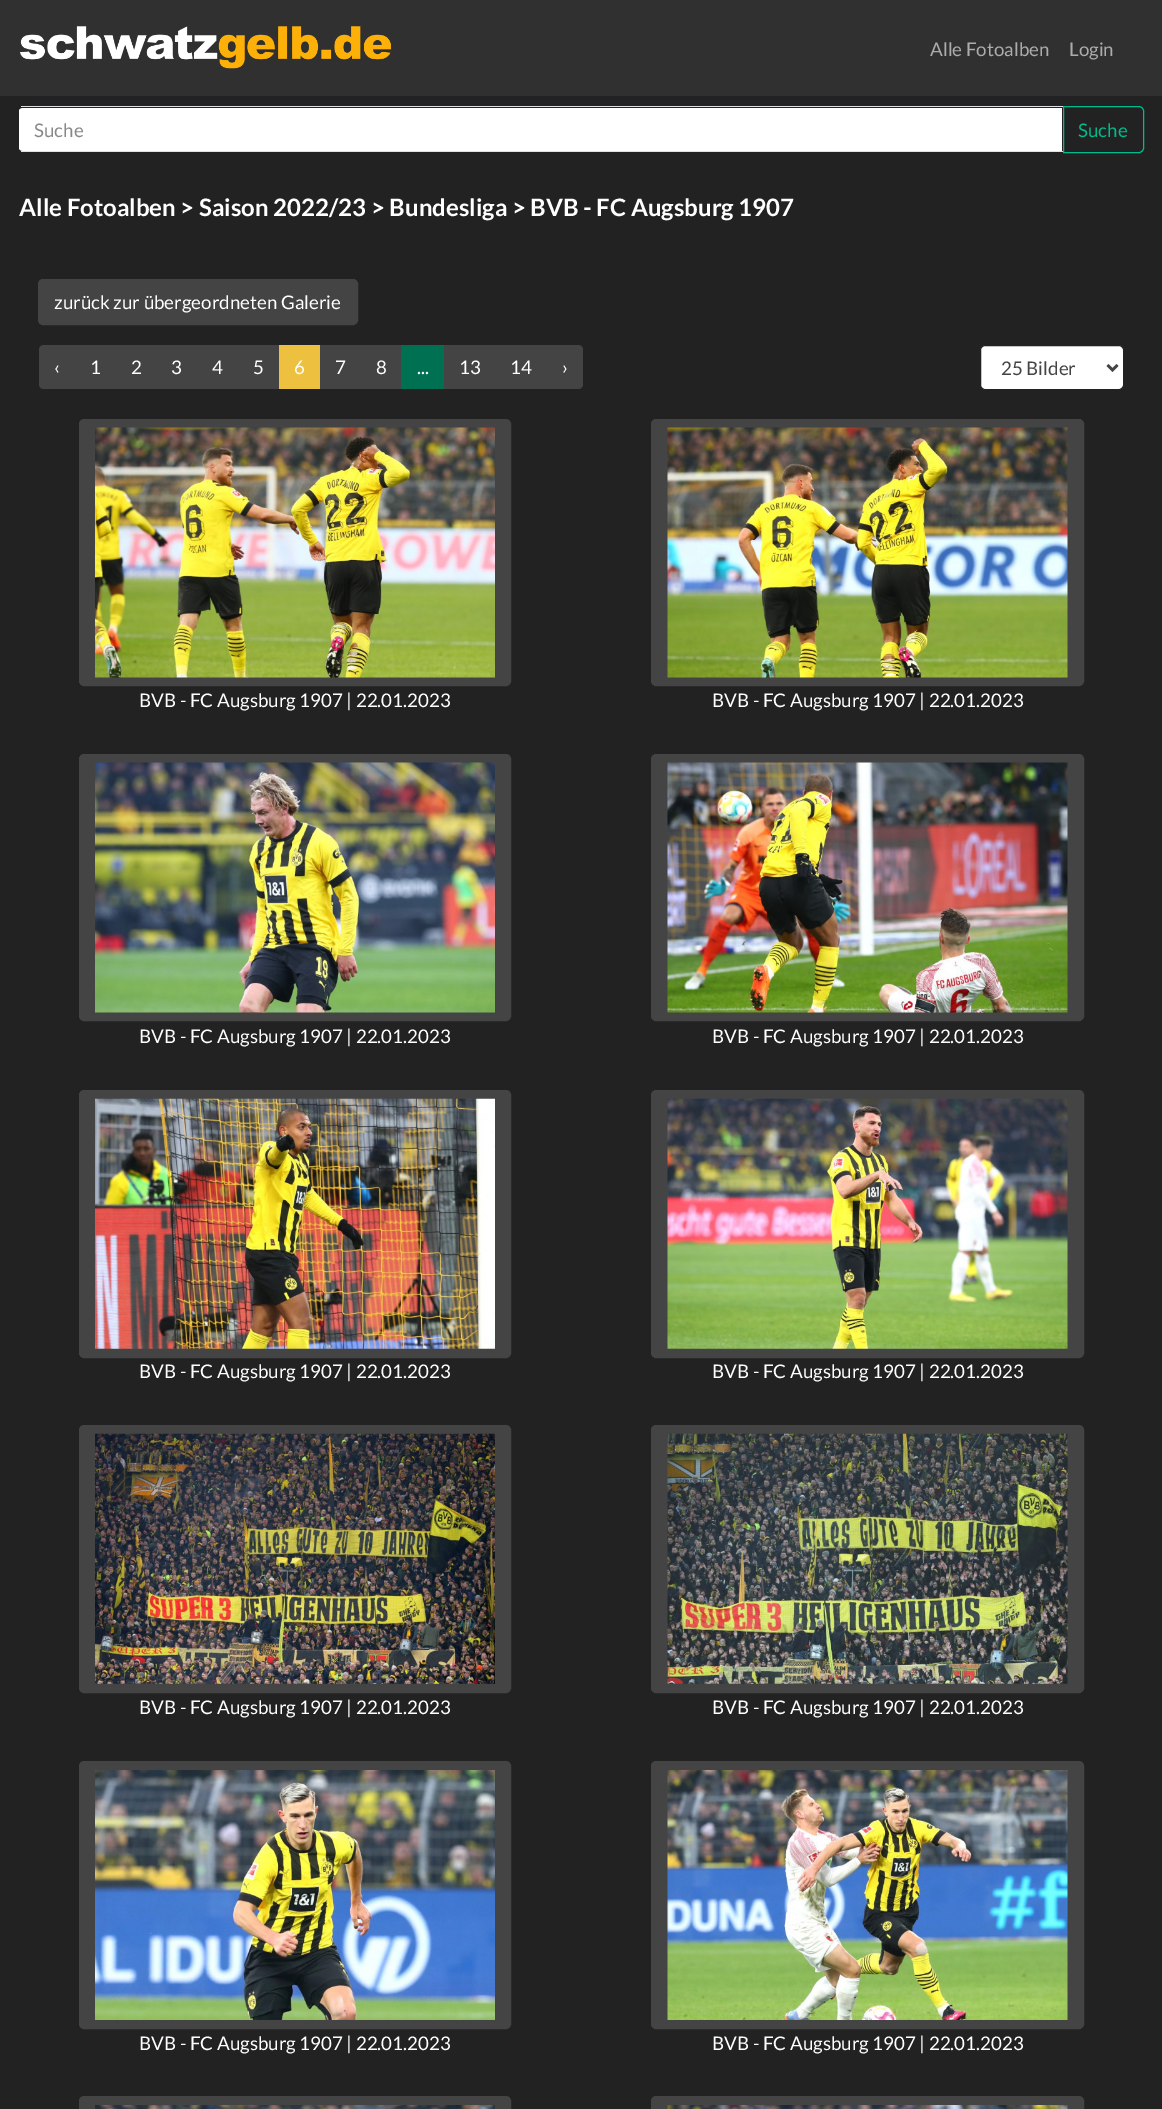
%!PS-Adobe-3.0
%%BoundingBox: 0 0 1162 2109
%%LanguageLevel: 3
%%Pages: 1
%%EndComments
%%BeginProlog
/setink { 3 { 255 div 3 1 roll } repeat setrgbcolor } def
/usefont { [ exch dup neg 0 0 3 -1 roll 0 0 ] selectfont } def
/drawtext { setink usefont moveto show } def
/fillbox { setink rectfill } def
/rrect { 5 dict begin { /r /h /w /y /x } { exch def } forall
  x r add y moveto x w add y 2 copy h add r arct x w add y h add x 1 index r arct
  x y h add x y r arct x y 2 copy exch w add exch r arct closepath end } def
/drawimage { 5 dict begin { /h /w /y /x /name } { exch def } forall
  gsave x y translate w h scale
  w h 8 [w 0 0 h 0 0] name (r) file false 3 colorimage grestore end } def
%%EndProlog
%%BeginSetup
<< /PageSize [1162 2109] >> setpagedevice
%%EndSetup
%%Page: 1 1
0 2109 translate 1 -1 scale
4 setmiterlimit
0 0 1162 2109 34 34 34 fillbox
0 0 1162 96 48 48 48 fillbox
(assets/img1.rgb) 20 26 371 43 drawimage
(Alle Fotoalben) 930 56 /Lato-Regular 18.75 172 172 172 drawtext
(Login) 1069 56 /Lato-Regular 18.75 172 172 172 drawtext
255 255 255 setink
24 108 moveto 1062 108 lineto 1062 151 lineto 24 151 lineto 21 151 19 150 19 148 curveto 19 111 lineto 19 109 21 108 24 108 curveto closepath fill
21 106 1043 1 222 226 230 fillbox
21 151 1043 1 222 226 230 fillbox
(Suche) 34 137 /Lato-Regular 18.75 136 136 136 drawtext
0 188 140 setink
1063.5 106.5 moveto 1139 106.5 lineto 1141.5 106.5 1143.5 108.5 1143.5 111 curveto 1143.5 148 lineto 1143.5 150.5 1141.5 152.5 1139 152.5 curveto 1063.5 152.5 lineto closepath stroke
(Suche) 1078 137 /Lato-Regular 18.75 0 188 140 drawtext
(Alle Fotoalben > Saison 2022/23 > Bundesliga > BVB - FC Augsburg 1907) 19 216 /Lato-Bold 24 255 255 255 drawtext
68 68 68 setink
38.5 279.5 319 45 4.5 rrect gsave fill grestore
stroke
(zurück zur übergeordneten Galerie) 54 309 /Lato-Regular 18.75 255 255 255 drawtext
68 68 68 setink
44 345 moveto 75 345 lineto 75 389 lineto 44 389 lineto 41 389 39 387 39 384 curveto 39 350 lineto 39 347 41 345 44 345 curveto closepath fill
(‹) 54 374 /Lato-Regular 18.75 255 255 255 drawtext
75 345 204 44 68 68 68 fillbox
(1) 90 374 /Lato-Regular 18.75 255 255 255 drawtext
(2) 131 374 /Lato-Regular 18.75 255 255 255 drawtext
(3) 171 374 /Lato-Regular 18.75 255 255 255 drawtext
(4) 212 374 /Lato-Regular 18.75 255 255 255 drawtext
(5) 253 374 /Lato-Regular 18.75 255 255 255 drawtext
279 345 41 44 237 193 63 fillbox
(6) 294 374 /Lato-Regular 18.75 255 255 255 drawtext
320 345 81 44 68 68 68 fillbox
(7) 335 374 /Lato-Regular 18.75 255 255 255 drawtext
(8) 376 374 /Lato-Regular 18.75 255 255 255 drawtext
401 345 43 44 0 112 83 fillbox
(...) 417 374 /Lato-Regular 18.75 255 255 255 drawtext
444 345 104 44 68 68 68 fillbox
(13) 459 374 /Lato-Regular 18.75 255 255 255 drawtext
(14) 510 374 /Lato-Regular 18.75 255 255 255 drawtext
68 68 68 setink
548 345 moveto 578 345 lineto 581 345 583 347 583 350 curveto 583 384 lineto 583 387 581 389 578 389 curveto 548 389 lineto closepath fill
(›) 562 374 /Lato-Regular 18.75 255 255 255 drawtext
980.5 345.5 143 44 4.5 rrect gsave fill grestore
34 34 34 setink
stroke
68 68 68 setink
2.5 setlinewidth
1107.5 365 moveto 1112.5 370 lineto 1117.5 365 lineto stroke
(25 Bilder) 1001 375 /Lato-Regular 18.75 68 68 68 drawtext
79.5 419.5 431 266 4.5 rrect gsave fill grestore
1 setlinewidth
stroke
(assets/img2.rgb) 95 427 400 251 drawimage
(BVB - FC Augsburg 1907 | 22.01.2023) 139 707 /Lato-Regular 18.75 255 255 255 drawtext
68 68 68 setink
651.5 419.5 432 266 4.5 rrect gsave fill grestore
stroke
(assets/img3.rgb) 667 427 401 251 drawimage
(BVB - FC Augsburg 1907 | 22.01.2023) 712 707 /Lato-Regular 18.75 255 255 255 drawtext
68 68 68 setink
79.5 754.5 431 266 4.5 rrect gsave fill grestore
stroke
(assets/img4.rgb) 95 762 400 251 drawimage
(BVB - FC Augsburg 1907 | 22.01.2023) 139 1043 /Lato-Regular 18.75 255 255 255 drawtext
68 68 68 setink
651.5 754.5 432 266 4.5 rrect gsave fill grestore
stroke
(assets/img5.rgb) 667 762 401 251 drawimage
(BVB - FC Augsburg 1907 | 22.01.2023) 712 1043 /Lato-Regular 18.75 255 255 255 drawtext
68 68 68 setink
79.5 1090.5 431 267 4.5 rrect gsave fill grestore
stroke
(assets/img6.rgb) 95 1098 400 251 drawimage
(BVB - FC Augsburg 1907 | 22.01.2023) 139 1378 /Lato-Regular 18.75 255 255 255 drawtext
68 68 68 setink
651.5 1090.5 432 267 4.5 rrect gsave fill grestore
stroke
(assets/img7.rgb) 667 1098 401 251 drawimage
(BVB - FC Augsburg 1907 | 22.01.2023) 712 1378 /Lato-Regular 18.75 255 255 255 drawtext
68 68 68 setink
79.5 1425.5 431 267 4.5 rrect gsave fill grestore
stroke
(assets/img8.rgb) 95 1433 400 251 drawimage
(BVB - FC Augsburg 1907 | 22.01.2023) 139 1714 /Lato-Regular 18.75 255 255 255 drawtext
68 68 68 setink
651.5 1425.5 432 267 4.5 rrect gsave fill grestore
stroke
(assets/img9.rgb) 667 1433 401 251 drawimage
(BVB - FC Augsburg 1907 | 22.01.2023) 712 1714 /Lato-Regular 18.75 255 255 255 drawtext
68 68 68 setink
79.5 1761.5 431 267 4.5 rrect gsave fill grestore
stroke
(assets/img10.rgb) 95 1770 400 250 drawimage
(BVB - FC Augsburg 1907 | 22.01.2023) 139 2050 /Lato-Regular 18.75 255 255 255 drawtext
68 68 68 setink
651.5 1761.5 432 267 4.5 rrect gsave fill grestore
stroke
(assets/img11.rgb) 667 1770 401 250 drawimage
(BVB - FC Augsburg 1907 | 22.01.2023) 712 2050 /Lato-Regular 18.75 255 255 255 drawtext
68 68 68 setink
79.5 2096.5 431 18 4.5 rrect gsave fill grestore
stroke
(assets/img12.rgb) 95 2105 400 4 drawimage
651.5 2096.5 432 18 4.5 rrect gsave fill grestore
stroke
(assets/img13.rgb) 667 2105 401 4 drawimage
showpage
%%EOF
